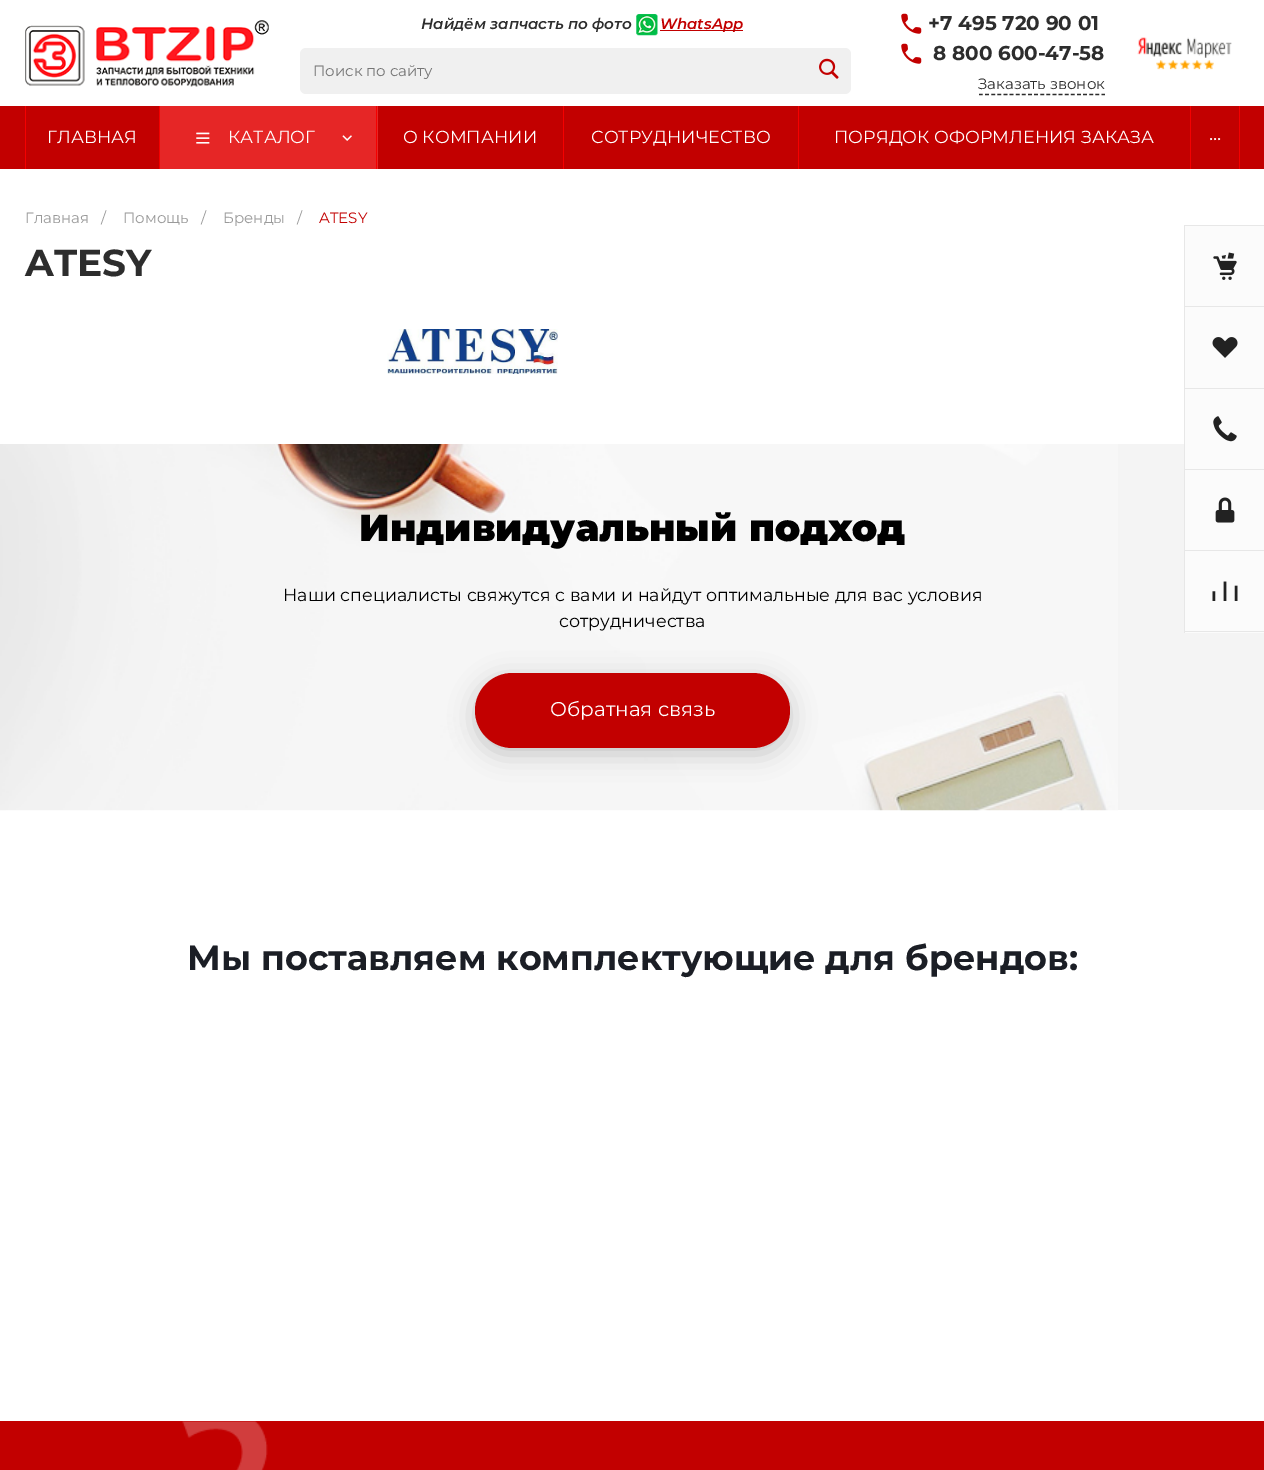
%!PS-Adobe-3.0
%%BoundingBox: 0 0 1264 1470
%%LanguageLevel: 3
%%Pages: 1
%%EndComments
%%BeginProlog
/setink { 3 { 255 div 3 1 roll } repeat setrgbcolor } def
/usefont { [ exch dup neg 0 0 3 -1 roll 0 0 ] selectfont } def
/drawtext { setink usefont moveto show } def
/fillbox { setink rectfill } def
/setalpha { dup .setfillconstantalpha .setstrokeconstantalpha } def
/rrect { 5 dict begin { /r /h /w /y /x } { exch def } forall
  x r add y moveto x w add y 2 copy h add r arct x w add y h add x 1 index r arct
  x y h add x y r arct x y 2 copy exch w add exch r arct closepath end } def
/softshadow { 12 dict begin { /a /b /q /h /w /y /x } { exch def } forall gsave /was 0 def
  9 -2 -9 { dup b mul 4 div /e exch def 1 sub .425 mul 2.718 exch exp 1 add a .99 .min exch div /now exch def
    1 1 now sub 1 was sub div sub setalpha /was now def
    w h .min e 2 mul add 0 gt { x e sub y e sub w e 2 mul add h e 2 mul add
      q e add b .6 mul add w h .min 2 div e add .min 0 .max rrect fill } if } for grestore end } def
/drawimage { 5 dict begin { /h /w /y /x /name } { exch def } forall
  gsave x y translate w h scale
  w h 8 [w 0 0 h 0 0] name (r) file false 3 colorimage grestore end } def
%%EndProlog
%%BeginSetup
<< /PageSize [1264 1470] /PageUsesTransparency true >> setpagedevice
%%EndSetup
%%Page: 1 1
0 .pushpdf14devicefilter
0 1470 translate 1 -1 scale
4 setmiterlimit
0 0 1264 1470 255 255 255 fillbox
(assets/img1.rgb) 25 20 244 67 drawimage
(Найдём запчасть по фото) 421 29 /Montserrat-SemiBoldItalic 15 45 45 45 drawtext
(assets/img2.rgb) 636 14 22 22 drawimage
660 30 83 1 194 0 0 fillbox
(WhatsApp) 660 29 /Montserrat-SemiBoldItalic 15 194 0 0 drawtext
240 240 240 setink
300 48 551 46 6 rrect fill
(Поиск по сайту) 313 76 /Montserrat-Regular 15 117 117 117 drawtext
(assets/img3.rgb) 819 58 20 21 drawimage
(assets/img4.rgb) 901 13 21 21 drawimage
(+7 495 720 90 01) 928 30 /Montserrat-Bold 20 45 45 45 drawtext
(assets/img4.rgb) 901 43 21 21 drawimage
(8 800 600-47-58) 933 60 /Montserrat-Bold 20 45 45 45 drawtext
1.2 setlinewidth
[3.75 2.38] 0 setdash
979 94.5 moveto 1105 94.5 lineto stroke
(Заказать звонок) 978 89 /Montserrat-Regular 15 45 45 45 drawtext
(assets/img5.rgb) 1137 37 95 33 drawimage
0 106 1264 63 194 0 0 fillbox
159 106 1 63 245 0 0 fillbox
25 106 1 63 245 0 0 fillbox
(ГЛАВНАЯ) 47 143 /Montserrat-Regular 17.5 255 255 255 drawtext
160 106 218 63 230 38 38 fillbox
376 106 1 63 245 0 0 fillbox
(assets/img6.rgb) 196 132 14 12 drawimage
(КАТАЛОГ) 228 143 /Montserrat-Regular 17.5 255 255 255 drawtext
(assets/img7.rgb) 342 135 10 6 drawimage
563 106 1 63 245 0 0 fillbox
(О КОМПАНИИ) 403 143 /Montserrat-Regular 17.5 255 255 255 drawtext
798 106 1 63 245 0 0 fillbox
(СОТРУДНИЧЕСТВО) 591 143 /Montserrat-Regular 17.5 255 255 255 drawtext
1190 106 1 63 245 0 0 fillbox
(ПОРЯДОК ОФОРМЛЕНИЯ ЗАКАЗА) 834 143 /Montserrat-Regular 17.5 255 255 255 drawtext
1239 106 1 63 245 0 0 fillbox
(...) 1209 140 /Montserrat-Regular 20 255 255 255 drawtext
1118 444 146 366 244 244 244 fillbox
1185 226 79 407 251 251 251 fillbox
1184 225 80 1 231 231 231 fillbox
1184 631 80 1 231 231 231 fillbox
1184 225 1 408 231 231 231 fillbox
1185 306 79 1 231 231 231 fillbox
(assets/img8.rgb) 1213 252 24 28 drawimage
1185 388 79 1 231 231 231 fillbox
(assets/img9.rgb) 1212 337 26 21 drawimage
1185 469 79 1 231 231 231 fillbox
(assets/img10.rgb) 1213 416 24 26 drawimage
1185 550 79 1 231 231 231 fillbox
(assets/img11.rgb) 1215 497 20 26 drawimage
(assets/img12.rgb) 1212 581 26 20 drawimage
(Главная) 25 223 /Montserrat-Regular 15 154 154 154 drawtext
(/) 101 223 /Montserrat-Regular 15 154 154 154 drawtext
(Помощь) 123 223 /Montserrat-Regular 15 154 154 154 drawtext
(/) 201 223 /Montserrat-Regular 15 154 154 154 drawtext
(Бренды) 223 223 /Montserrat-Regular 15 154 154 154 drawtext
(/) 297 223 /Montserrat-Regular 15 154 154 154 drawtext
(ATESY) 319 223 /Montserrat-Regular 15 194 0 0 drawtext
(ATESY) 25 276 /Montserrat-Bold 37.5 45 45 45 drawtext
(assets/img13.rgb) 387 329 171 45 drawimage
(assets/img14.rgb) 0 444 1118 367 drawimage
(Индивидуальный подход) 359 541 /Montserrat-Black 37.5 0 0 0 drawtext
(Наши специалисты свяжутся с вами и найдут оптимальные для вас условия) 283 601 /Montserrat-Regular 17.5 0 0 0 drawtext
(сотрудничества) 559 627 /Montserrat-Regular 17.5 0 0 0 drawtext
475 679 315 75 37.5 12.5 0.2 softshadow
194 0 0 setink
475 673 315 75 37.5 rrect fill
(Обратная связь) 550 716 /Montserrat-Regular 20 255 255 255 drawtext
(Мы поставляем комплектующие для брендов:) 187 970 /Montserrat-Bold 35 27 30 37 drawtext
0 1421 1264 49 194 0 0 fillbox
(assets/img15.rgb) 182 1421 86 49 drawimage
.poppdf14devicefilter showpage
%%EOF
